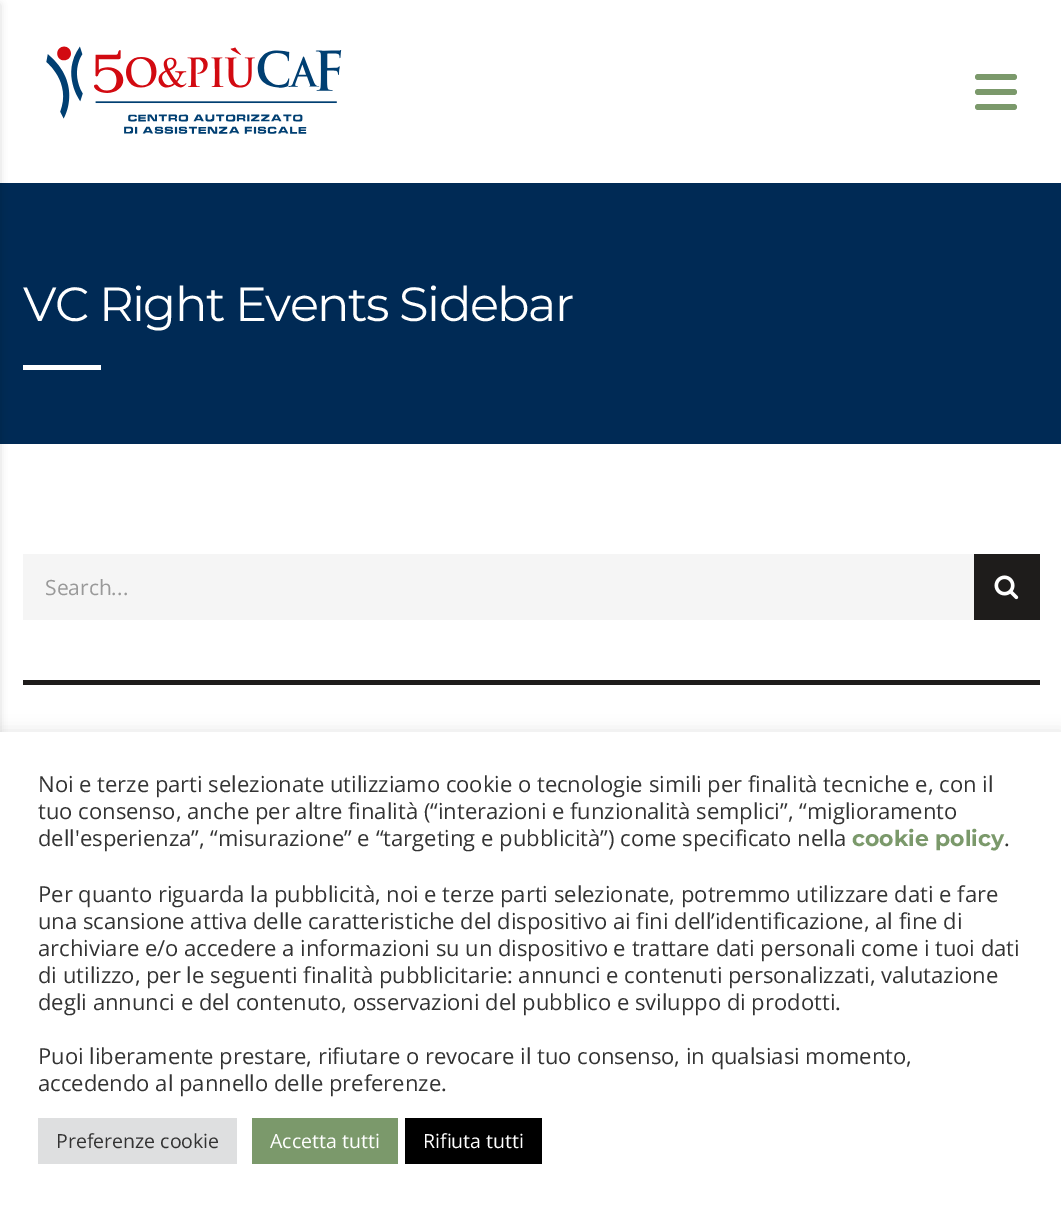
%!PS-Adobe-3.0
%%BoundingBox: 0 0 1061 1208
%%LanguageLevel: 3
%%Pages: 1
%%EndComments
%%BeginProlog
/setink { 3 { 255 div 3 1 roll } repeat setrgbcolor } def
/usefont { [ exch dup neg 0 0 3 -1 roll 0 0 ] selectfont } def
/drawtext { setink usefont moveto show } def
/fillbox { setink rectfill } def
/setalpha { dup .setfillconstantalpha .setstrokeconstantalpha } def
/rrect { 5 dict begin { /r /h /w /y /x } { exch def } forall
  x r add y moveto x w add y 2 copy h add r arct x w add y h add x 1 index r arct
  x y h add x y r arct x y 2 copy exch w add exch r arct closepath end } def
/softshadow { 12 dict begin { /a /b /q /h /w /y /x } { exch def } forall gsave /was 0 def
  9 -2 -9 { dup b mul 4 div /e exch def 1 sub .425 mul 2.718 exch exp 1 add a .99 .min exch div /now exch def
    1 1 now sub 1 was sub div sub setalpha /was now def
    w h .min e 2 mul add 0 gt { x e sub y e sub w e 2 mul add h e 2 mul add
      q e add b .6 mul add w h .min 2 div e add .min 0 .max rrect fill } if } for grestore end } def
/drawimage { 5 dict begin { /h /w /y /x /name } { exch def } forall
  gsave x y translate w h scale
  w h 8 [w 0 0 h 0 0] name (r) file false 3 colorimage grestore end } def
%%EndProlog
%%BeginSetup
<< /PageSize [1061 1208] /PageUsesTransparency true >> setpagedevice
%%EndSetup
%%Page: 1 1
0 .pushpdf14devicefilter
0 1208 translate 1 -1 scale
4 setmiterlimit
0 0 1061 1208 255 255 255 fillbox
0 183 1061 261 0 42 85 fillbox
0 0 0 setink
-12 5 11 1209 0 4 0.2 softshadow
(assets/img1.rgb) 46 46 296 88 drawimage
123 153 107 setink
975 74 42 6 3 rrect fill
975 89 42 6 3 rrect fill
975 104 42 6 3 rrect fill
/Montserrat-Regular 48 usefont
255 255 255 setink
23 321 moveto -1.5 0 (VC Right Events Sidebar) ashow
23 365 78 5 255 255 255 fillbox
23 554 951 66 245 245 245 fillbox
(Search...) 45 595 /OpenSans-Regular 21 153 153 153 drawtext
974 554 66 66 30 28 27 fillbox
(assets/img2.rgb) 994 575 25 25 drawimage
23 680 1017 5 30 28 27 fillbox
172 171 171 setink
0 731 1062 477 0 7.5 0.3 softshadow
0 732 1061 476 255 255 255 fillbox
(Noi e terze parti selezionate utilizziamo cookie o tecnologie simili per finalità tecniche e, con il) 38 792 /OpenSans-Regular 22 51 51 51 drawtext
(tuo consenso, anche per altre finalità \(“interazioni e funzionalità semplici”, “miglioramento) 38 819 /OpenSans-Regular 22 51 51 51 drawtext
(dell'esperienza”, “misurazione” e “targeting e pubblicità”\) come specificato nella) 38 846 /OpenSans-Regular 22 51 51 51 drawtext
(cookie policy) 852 846 /Montserrat-Bold 22 123 153 107 drawtext
(.) 1004 846 /OpenSans-Regular 22 51 51 51 drawtext
(Per quanto riguarda la pubblicità, noi e terze parti selezionate, potremmo utilizzare dati e fare) 38 902 /OpenSans-Regular 22 51 51 51 drawtext
(una scansione attiva delle caratteristiche del dispositivo ai fini dell’identificazione, al fine di) 38 929 /OpenSans-Regular 22 51 51 51 drawtext
(archiviare e/o accedere a informazioni su un dispositivo e trattare dati personali come i tuoi dati) 38 956 /OpenSans-Regular 22 51 51 51 drawtext
(di utilizzo, per le seguenti finalità pubblicitarie: annunci e contenuti personalizzati, valutazione) 38 983 /OpenSans-Regular 22 51 51 51 drawtext
(degli annunci e del contenuto, osservazioni del pubblico e sviluppo di prodotti.) 38 1010 /OpenSans-Regular 22 51 51 51 drawtext
(Puoi liberamente prestare, rifiutare o revocare il tuo consenso, in qualsiasi momento,) 38 1064 /OpenSans-Regular 22 51 51 51 drawtext
(accedendo al pannello delle preferenze.) 38 1091 /OpenSans-Regular 22 51 51 51 drawtext
38 1118 199 46 222 223 224 fillbox
(Preferenze cookie) 56 1148 /OpenSans-Regular 19.5 51 51 51 drawtext
252 1118 146 46 123 153 107 fillbox
(Accetta tutti) 270 1148 /OpenSans-Regular 19.5 255 255 255 drawtext
405 1118 137 46 0 0 0 fillbox
(Rifiuta tutti) 423 1148 /OpenSans-Regular 19.5 255 255 255 drawtext
.poppdf14devicefilter showpage
%%EOF
